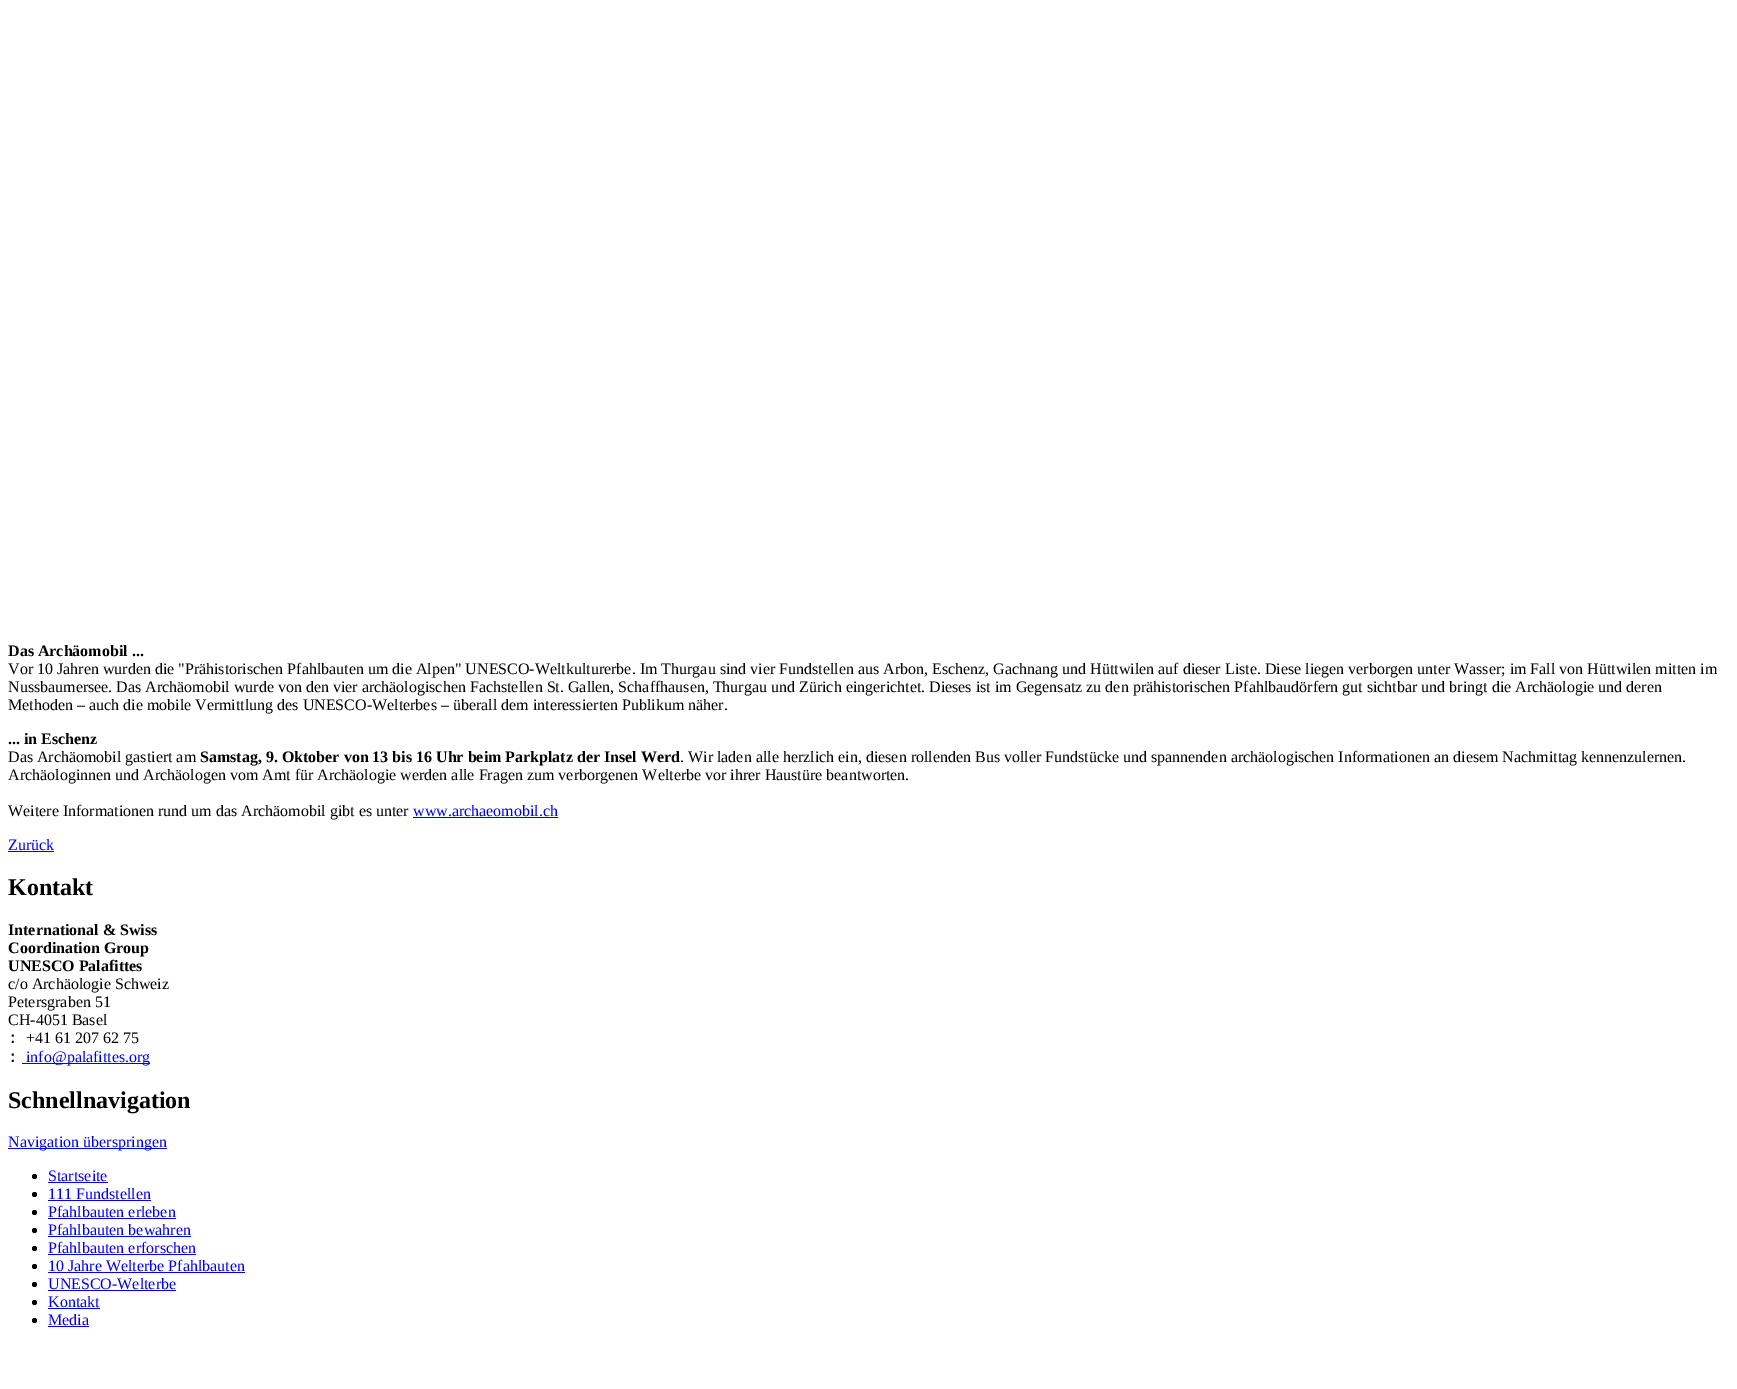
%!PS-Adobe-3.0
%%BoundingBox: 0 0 1737 1389
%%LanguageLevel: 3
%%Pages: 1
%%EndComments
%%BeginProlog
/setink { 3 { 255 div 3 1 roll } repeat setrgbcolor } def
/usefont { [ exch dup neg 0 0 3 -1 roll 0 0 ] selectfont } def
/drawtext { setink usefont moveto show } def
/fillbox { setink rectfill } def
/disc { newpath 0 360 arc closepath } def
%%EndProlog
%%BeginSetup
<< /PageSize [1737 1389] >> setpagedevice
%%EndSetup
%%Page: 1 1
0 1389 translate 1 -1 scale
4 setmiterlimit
0 0 1737 1389 255 255 255 fillbox
(Das Archäomobil ...) 8 656 /LiberationSerif-Bold 16 0 0 0 drawtext
(Vor 10 Jahren wurden die "Prähistorischen Pfahlbauten um die Alpen" UNESCO-Weltkulturerbe. Im Thurgau sind vier Fundstellen aus Arbon, Eschenz, Gachnang und Hüttwilen auf dieser Liste. Diese liegen verborgen unter Wasser; im Fall von Hüttwilen mitten im) 8 674 /LiberationSerif-Regular 16 0 0 0 drawtext
(Nussbaumersee. Das Archäomobil wurde von den vier archäologischen Fachstellen St. Gallen, Schaffhausen, Thurgau und Zürich eingerichtet. Dieses ist im Gegensatz zu den prähistorischen Pfahlbaudörfern gut sichtbar und bringt die Archäologie und deren) 8 692 /LiberationSerif-Regular 16 0 0 0 drawtext
(Methoden – auch die mobile Vermittlung des UNESCO-Welterbes – überall dem interessierten Publikum näher.) 8 710 /LiberationSerif-Regular 16 0 0 0 drawtext
(... in Eschenz) 8 744 /LiberationSerif-Bold 16 0 0 0 drawtext
(Das Archäomobil gastiert am) 8 762 /LiberationSerif-Regular 16 0 0 0 drawtext
(Samstag, 9. Oktober von 13 bis 16 Uhr beim Parkplatz der Insel Werd) 200 762 /LiberationSerif-Bold 16 0 0 0 drawtext
(. Wir laden alle herzlich ein, diesen rollenden Bus voller Fundstücke und spannenden archäologischen Informationen an diesem Nachmittag kennenzulernen.) 680 762 /LiberationSerif-Regular 16 0 0 0 drawtext
(Archäologinnen und Archäologen vom Amt für Archäologie werden alle Fragen zum verborgenen Welterbe vor ihrer Haustüre beantworten.) 8 780 /LiberationSerif-Regular 16 0 0 0 drawtext
(Weitere Informationen rund um das Archäomobil gibt es unter) 8 816 /LiberationSerif-Regular 16 0 0 0 drawtext
(www.archaeomobil.ch) 413 816 /LiberationSerif-Regular 16 0 0 238 drawtext
413 817 145 1 0 0 238 fillbox
(Zurück) 8 850 /LiberationSerif-Regular 16 0 0 238 drawtext
8 851 46 1 0 0 238 fillbox
(Kontakt) 8 895 /LiberationSerif-Bold 24 0 0 0 drawtext
(International & Swiss) 8 935 /LiberationSerif-Bold 16 0 0 0 drawtext
(Coordination Group) 8 953 /LiberationSerif-Bold 16 0 0 0 drawtext
(UNESCO Palafittes) 8 971 /LiberationSerif-Bold 16 0 0 0 drawtext
(c/o Archäologie Schweiz) 8 989 /LiberationSerif-Regular 16 0 0 0 drawtext
(Petersgraben 51) 8 1007 /LiberationSerif-Regular 16 0 0 0 drawtext
(CH-4051 Basel) 8 1025 /LiberationSerif-Regular 16 0 0 0 drawtext
(:) 8 1043 /LiberationMono-Regular 16 0 0 0 drawtext
(+41 61 207 62 75) 26 1043 /LiberationSerif-Regular 16 0 0 0 drawtext
(:) 8 1062 /LiberationMono-Regular 16 0 0 0 drawtext
22 1063 128 1 0 0 238 fillbox
(info@palafittes.org) 26 1062 /LiberationSerif-Regular 16 0 0 238 drawtext
(Schnellnavigation) 8 1108 /LiberationSerif-Bold 24 0 0 0 drawtext
8 1148 159 1 0 0 238 fillbox
(Navigation überspringen) 8 1147 /LiberationSerif-Regular 16 0 0 238 drawtext
0 0 0 setink
34.5 1176.5 2.5 disc fill
(Startseite) 48 1181 /LiberationSerif-Regular 16 0 0 238 drawtext
48 1182 60 1 0 0 238 fillbox
0 0 0 setink
34.5 1194.5 2.5 disc fill
(111 Fundstellen) 48 1199 /LiberationSerif-Regular 16 0 0 238 drawtext
48 1200 103 1 0 0 238 fillbox
0 0 0 setink
34.5 1212.5 2.5 disc fill
(Pfahlbauten erleben) 48 1217 /LiberationSerif-Regular 16 0 0 238 drawtext
48 1218 128 1 0 0 238 fillbox
0 0 0 setink
34.5 1230.5 2.5 disc fill
(Pfahlbauten bewahren) 48 1235 /LiberationSerif-Regular 16 0 0 238 drawtext
48 1236 143 1 0 0 238 fillbox
0 0 0 setink
34.5 1248.5 2.5 disc fill
(Pfahlbauten erforschen) 48 1253 /LiberationSerif-Regular 16 0 0 238 drawtext
48 1254 148 1 0 0 238 fillbox
0 0 0 setink
34.5 1266.5 2.5 disc fill
(10 Jahre Welterbe Pfahlbauten) 48 1271 /LiberationSerif-Regular 16 0 0 238 drawtext
48 1272 197 1 0 0 238 fillbox
0 0 0 setink
34.5 1284.5 2.5 disc fill
(UNESCO-Welterbe) 48 1289 /LiberationSerif-Regular 16 0 0 238 drawtext
48 1290 128 1 0 0 238 fillbox
0 0 0 setink
34.5 1302.5 2.5 disc fill
(Kontakt) 48 1307 /LiberationSerif-Regular 16 0 0 238 drawtext
48 1308 52 1 0 0 238 fillbox
0 0 0 setink
34.5 1320.5 2.5 disc fill
(Media) 48 1325 /LiberationSerif-Regular 16 0 0 238 drawtext
48 1326 41 1 0 0 238 fillbox
showpage
%%EOF
